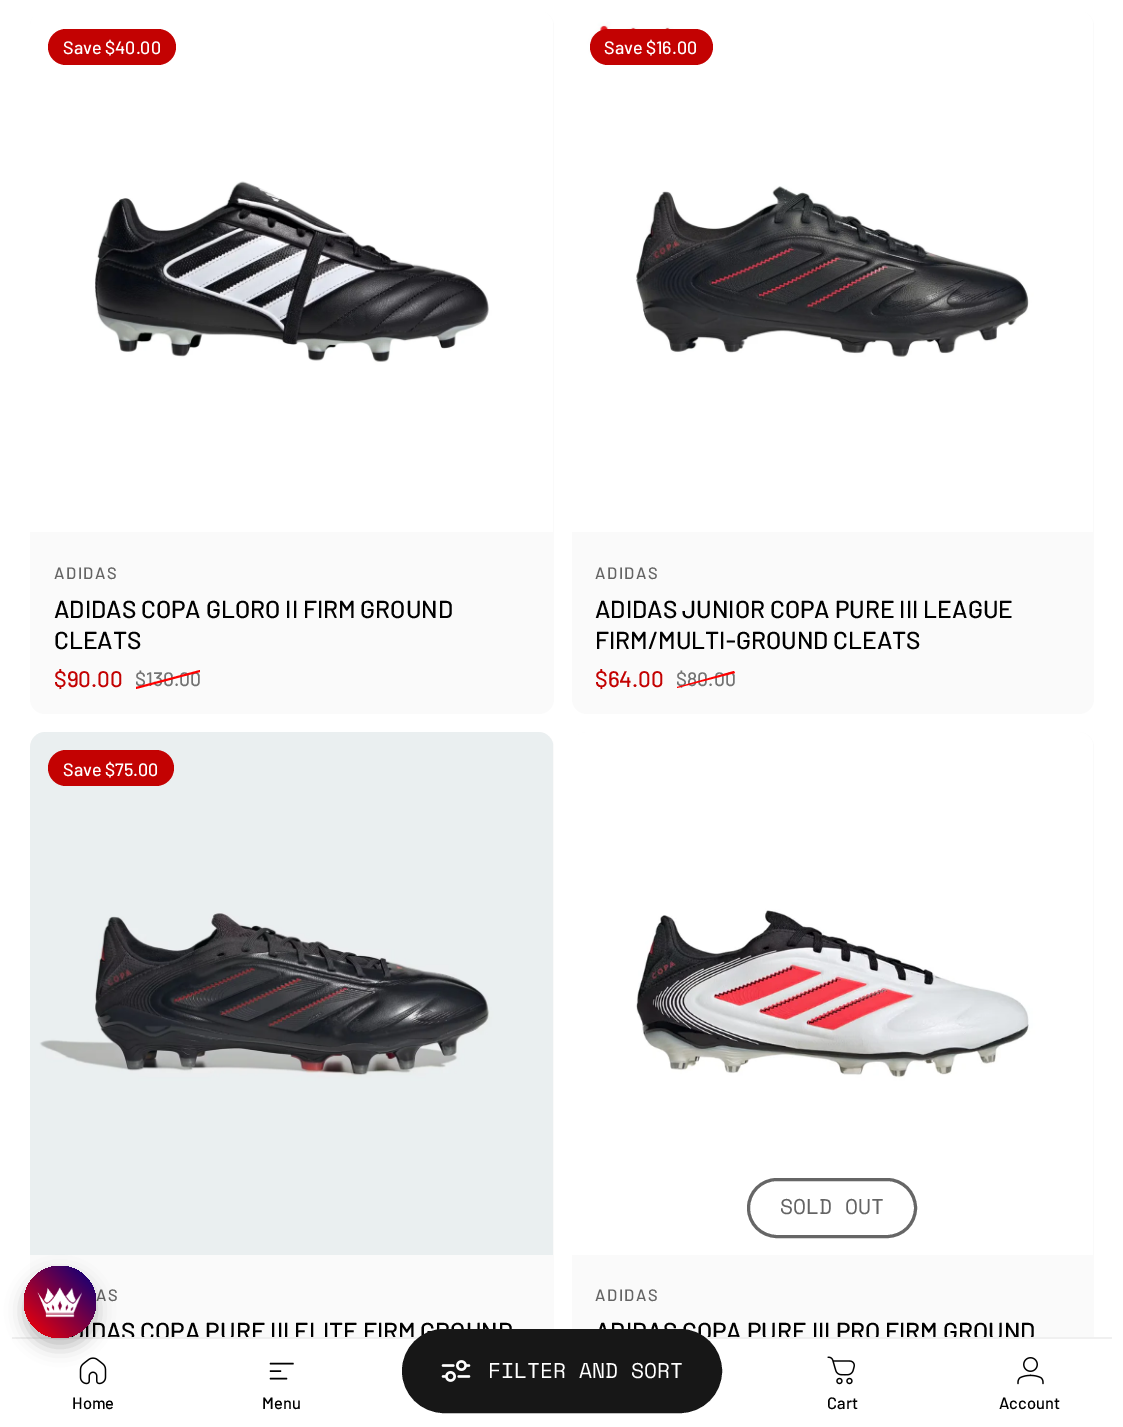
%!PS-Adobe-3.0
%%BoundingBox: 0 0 1123 1427
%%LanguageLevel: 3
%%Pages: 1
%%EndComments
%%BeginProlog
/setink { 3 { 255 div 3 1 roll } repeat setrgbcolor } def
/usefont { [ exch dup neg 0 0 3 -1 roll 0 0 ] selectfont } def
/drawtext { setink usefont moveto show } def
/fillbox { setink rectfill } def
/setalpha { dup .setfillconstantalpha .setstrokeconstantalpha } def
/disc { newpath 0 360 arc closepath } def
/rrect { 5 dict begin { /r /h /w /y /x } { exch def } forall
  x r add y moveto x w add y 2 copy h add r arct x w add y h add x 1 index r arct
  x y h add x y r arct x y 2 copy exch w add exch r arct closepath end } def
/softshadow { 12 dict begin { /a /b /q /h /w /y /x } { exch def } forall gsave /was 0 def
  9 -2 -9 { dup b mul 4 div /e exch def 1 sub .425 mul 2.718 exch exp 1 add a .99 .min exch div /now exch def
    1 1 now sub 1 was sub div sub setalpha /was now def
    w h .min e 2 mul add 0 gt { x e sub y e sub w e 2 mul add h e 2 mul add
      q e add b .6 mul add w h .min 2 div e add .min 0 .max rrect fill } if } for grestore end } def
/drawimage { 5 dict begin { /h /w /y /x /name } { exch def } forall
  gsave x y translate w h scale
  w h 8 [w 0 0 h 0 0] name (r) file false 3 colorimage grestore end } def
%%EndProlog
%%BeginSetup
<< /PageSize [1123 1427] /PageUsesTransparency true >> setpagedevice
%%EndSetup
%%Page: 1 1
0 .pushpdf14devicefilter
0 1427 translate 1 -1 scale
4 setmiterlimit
0 0 1123 1427 255 255 255 fillbox
250 250 250 setink
30 11 524 703 15 rrect fill
(assets/img1.rgb) 30 11 523 521 drawimage
195 2 2 setink
48 29 128 36 18 rrect fill
(Save $40.00) 63 54 /Barlow-Medium 18 255 255 255 drawtext
/Barlow-Medium 16.5 usefont
100 100 100 setink
54 579 moveto 1.5 0 (ADIDAS) ashow
(ADIDAS COPA GLORO II FIRM GROUND) 54 618 /Barlow-Medium 24.5 0 0 0 drawtext
(CLEATS) 54 649 /Barlow-Medium 24.5 0 0 0 drawtext
($90.00) 54 687 /Barlow-Medium 22.5 195 2 2 drawtext
($130.00) 135 686 /Barlow-Medium 19.5 114 114 114 drawtext
255 0 0 setink
136 687 moveto 200 670 lineto 200 672 lineto 136 689 lineto closepath fill
250 250 250 setink
572 11 522 703 15 rrect fill
(assets/img2.rgb) 572 11 521 521 drawimage
195 2 2 setink
590 29 123 36 18 rrect fill
(Save $16.00) 604 54 /Barlow-Medium 18 255 255 255 drawtext
/Barlow-Medium 16.5 usefont
100 100 100 setink
595 579 moveto 1.5 0 (ADIDAS) ashow
(ADIDAS JUNIOR COPA PURE III LEAGUE) 595 618 /Barlow-Medium 24.5 0 0 0 drawtext
(FIRM/MULTI-GROUND CLEATS) 595 649 /Barlow-Medium 24.5 0 0 0 drawtext
($64.00) 595 687 /Barlow-Medium 22.5 195 2 2 drawtext
($80.00) 676 686 /Barlow-Medium 19.5 114 114 114 drawtext
255 0 0 setink
677 687 moveto 734 671 lineto 735 673 lineto 677 688 lineto closepath fill
250 250 250 setink
30 732 524 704 15 rrect fill
(assets/img3.rgb) 30 732 523 523 drawimage
195 2 2 setink
48 750 126 36 18 rrect fill
(Save $75.00) 63 776 /Barlow-Medium 18 255 255 255 drawtext
/Barlow-Medium 16.5 usefont
100 100 100 setink
96 1301 moveto 1.5 0 (AS) ashow
(DIDAS COPA PURE III ELITE FIRM GROUND) 69 1340 /Barlow-Medium 24.5 0 0 0 drawtext
250 250 250 setink
572 732 522 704 15 rrect fill
(assets/img4.rgb) 572 732 521 523 drawimage
102 102 102 setink
3 setlinewidth
748.5 1179.5 167 57 28.5 rrect stroke
(SOLD OUT) 780 1214 /SpaceMono-Regular 21.25 100 100 100 drawtext
/Barlow-Medium 16.5 usefont
595 1301 moveto 1.5 0 (ADIDAS) ashow
(ADIDAS COPA PURE III PRO FIRM GROUND) 595 1340 /Barlow-Medium 24.5 0 0 0 drawtext
255 255 255 setink
24 1337 moveto 1100 1337 lineto 1113.5 1337 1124 1347.5 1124 1361 curveto 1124 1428 lineto 0 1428 lineto 0 1361 lineto 0 1347.5 10.5 1337 24 1337 curveto closepath fill
12 1337 1100 2 240 240 240 fillbox
23 23 23 setink
403.5 1330.5 317 81 40.5 rrect gsave fill grestore
stroke
(assets/img5.rgb) 441 1360 30 22 drawimage
(FILTER AND SORT) 488 1378 /SpaceMono-Regular 21.25 255 255 255 drawtext
(assets/img7.rgb) 79 1357 28 28 drawimage
0 0 0 setink
24 1275 72 72 36 9 0.25 softshadow
gsave 60 1302 36 disc clip newpath
<< /ShadingType 2 /ColorSpace /DeviceRGB /Coords [24 1338 96 1266] /Extend [true true] /Function << /FunctionType 2 /Domain [0 1] /C0 [1 0 0] /C1 [0 0 0.502] /N 1 >> >> shfill grestore
(assets/img6.rgb) 37 1287 45 31 drawimage
(Home) 72 1409 /Barlow-Medium 16.5 0 0 0 drawtext
1.5 setlinewidth
1 setlinecap
1 setlinejoin
270.5 1363.5 moveto 293 1363.5 lineto 270.5 1371 moveto 280.5 1371 lineto 270.5 1378.5 moveto 286.5 1378.5 lineto stroke
(Menu) 262 1409 /Barlow-Medium 16.5 0 0 0 drawtext
(assets/img8.rgb) 827 1356 28 29 drawimage
(Cart) 827 1409 /Barlow-Medium 16.5 0 0 0 drawtext
(assets/img9.rgb) 1017 1357 27 28 drawimage
(Account) 999 1409 /Barlow-Medium 16.5 0 0 0 drawtext
.poppdf14devicefilter showpage
%%EOF
